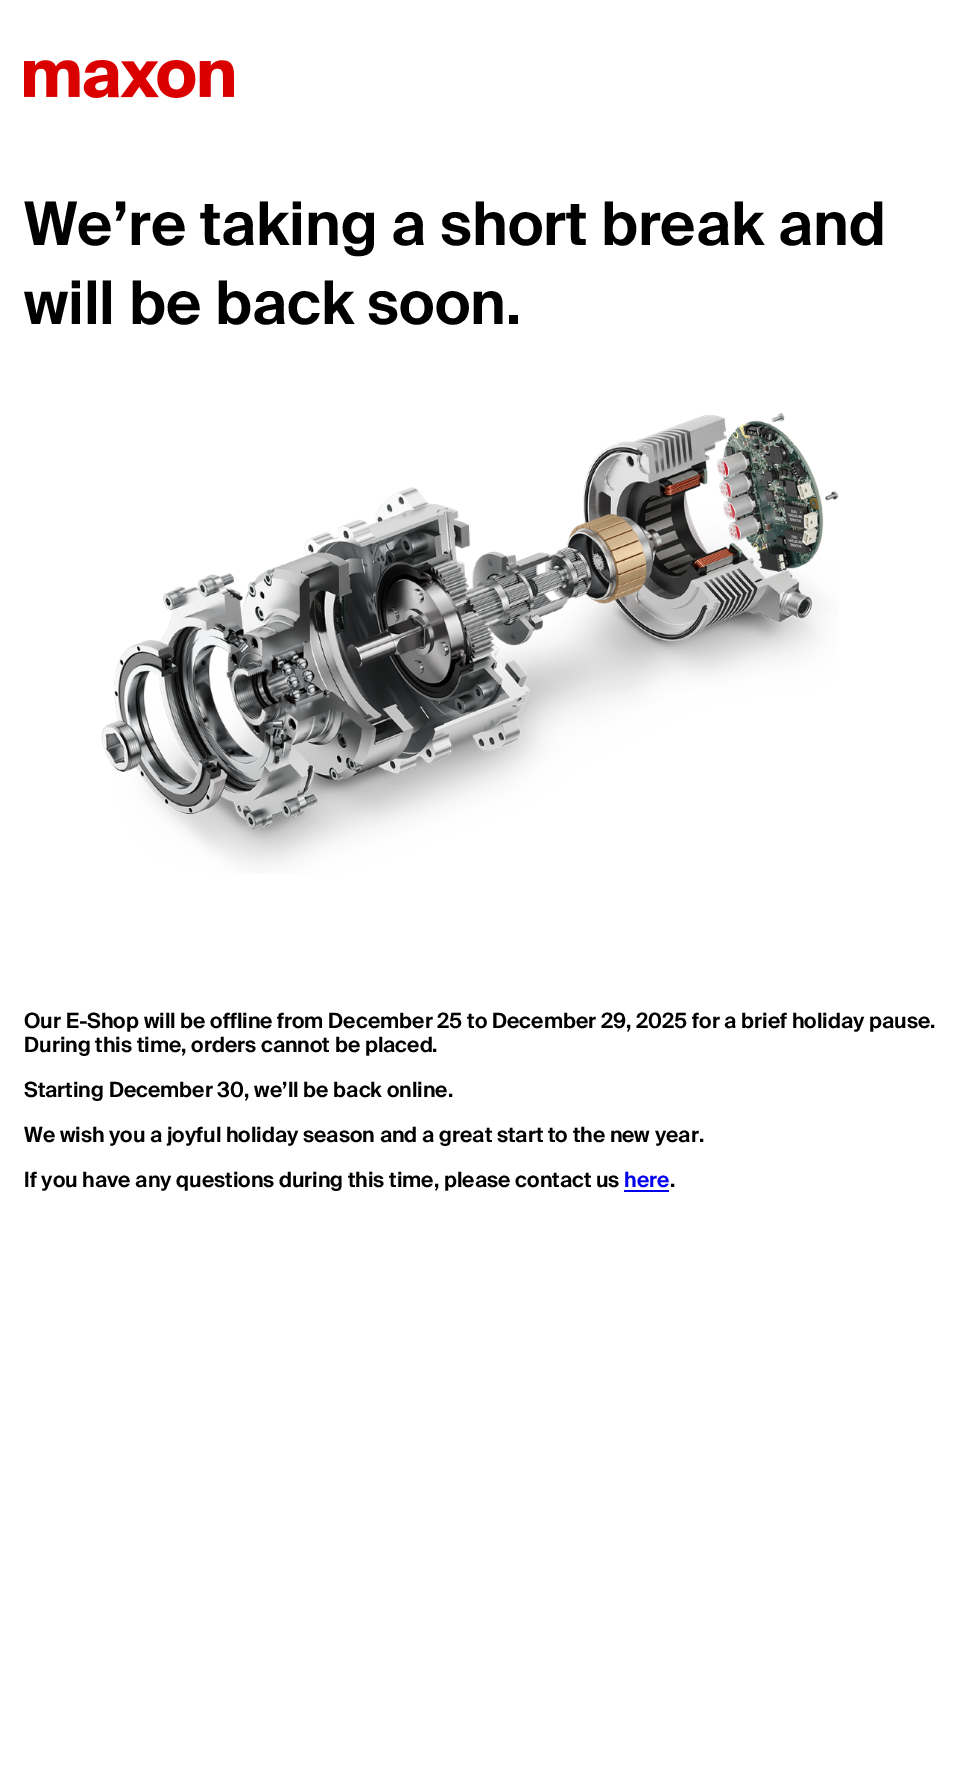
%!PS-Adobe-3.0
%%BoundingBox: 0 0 961 1777
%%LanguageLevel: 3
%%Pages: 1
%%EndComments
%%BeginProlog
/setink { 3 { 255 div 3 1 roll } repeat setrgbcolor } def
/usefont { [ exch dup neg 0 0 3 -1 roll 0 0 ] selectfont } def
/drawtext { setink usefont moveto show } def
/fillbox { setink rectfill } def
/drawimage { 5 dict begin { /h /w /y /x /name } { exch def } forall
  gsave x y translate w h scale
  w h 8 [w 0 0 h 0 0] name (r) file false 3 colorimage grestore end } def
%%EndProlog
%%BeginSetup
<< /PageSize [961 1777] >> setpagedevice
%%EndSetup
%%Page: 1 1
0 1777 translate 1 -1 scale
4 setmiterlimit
0 0 961 1777 255 255 255 fillbox
(assets/img1.rgb) 24 60 210 38 drawimage
(We’re taking a short break and) 24 245 /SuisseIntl-SemiBold 60 0 0 0 drawtext
(will be back soon.) 24 324 /SuisseIntl-SemiBold 60 0 0 0 drawtext
(assets/img2.rgb) 101 413 738 461 drawimage
(Our E-Shop will be offline from December 25 to December 29, 2025 for a brief holiday pause.) 24 1028 /SuisseIntl-SemiBold 21 0 0 0 drawtext
(During this time, orders cannot be placed.) 24 1052 /SuisseIntl-SemiBold 21 0 0 0 drawtext
(Starting December 30, we’ll be back online.) 24 1097 /SuisseIntl-SemiBold 21 0 0 0 drawtext
(We wish you a joyful holiday season and a great start to the new year.) 24 1142 /SuisseIntl-SemiBold 21 0 0 0 drawtext
(If you have any questions during this time, please contact us) 24 1187 /SuisseIntl-SemiBold 21 0 0 0 drawtext
(here) 624 1187 /SuisseIntl-SemiBold 21 0 0 238 drawtext
624 1190 45 2 0 0 238 fillbox
(.) 670 1187 /SuisseIntl-SemiBold 21 0 0 0 drawtext
showpage
%%EOF
